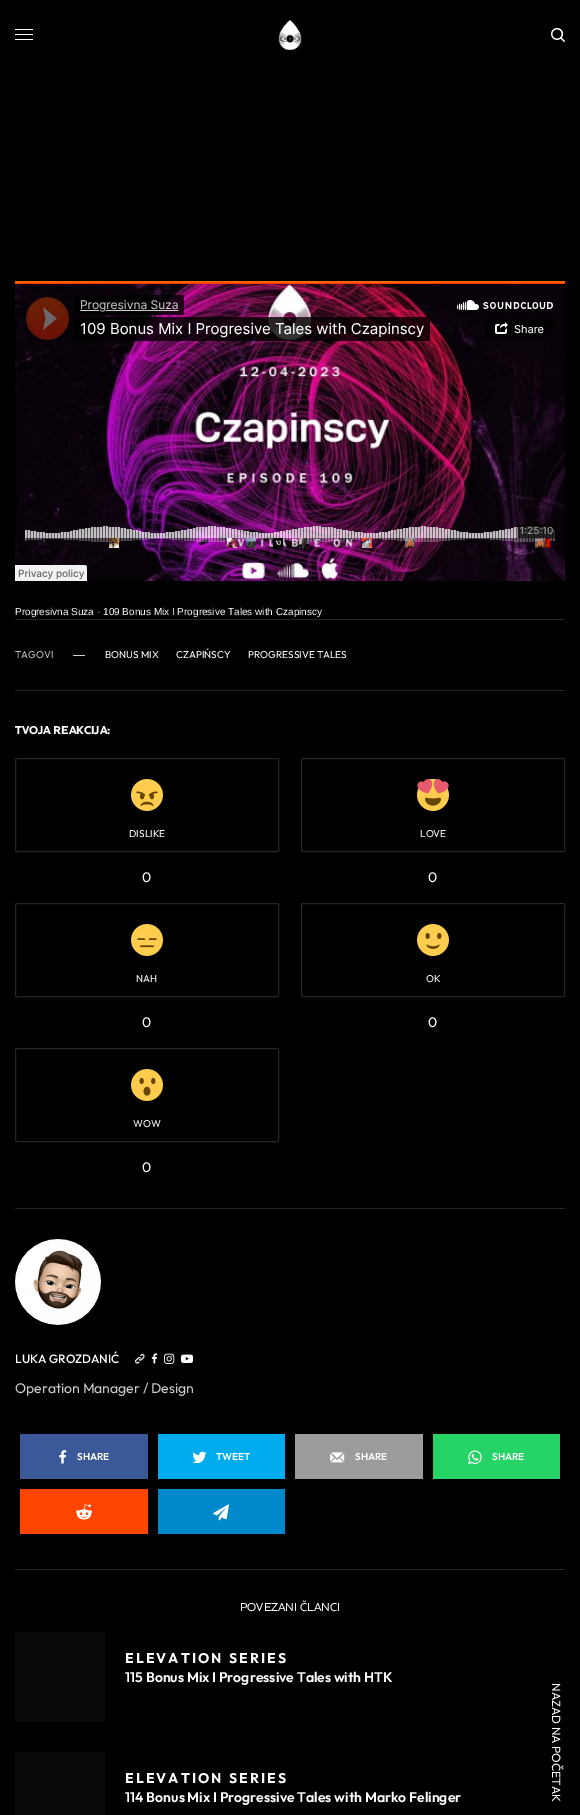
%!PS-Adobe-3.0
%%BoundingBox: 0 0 580 1815
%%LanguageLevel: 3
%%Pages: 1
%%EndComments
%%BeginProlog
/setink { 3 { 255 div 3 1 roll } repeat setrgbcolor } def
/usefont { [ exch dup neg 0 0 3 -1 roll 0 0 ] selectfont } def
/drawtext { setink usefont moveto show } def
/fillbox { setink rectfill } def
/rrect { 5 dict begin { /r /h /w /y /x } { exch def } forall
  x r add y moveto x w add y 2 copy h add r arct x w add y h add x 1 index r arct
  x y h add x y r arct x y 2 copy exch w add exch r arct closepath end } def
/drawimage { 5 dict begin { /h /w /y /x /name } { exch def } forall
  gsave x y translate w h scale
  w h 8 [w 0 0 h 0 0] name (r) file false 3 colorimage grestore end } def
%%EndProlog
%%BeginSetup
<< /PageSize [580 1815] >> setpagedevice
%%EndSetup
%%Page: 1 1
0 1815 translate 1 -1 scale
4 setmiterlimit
0 0 580 1815 0 0 0 fillbox
255 255 255 setink
15 29 18 1 0.5 rrect fill
15 34 18 1 0.5 rrect fill
15 39 18 1 0.5 rrect fill
(assets/img1.rgb) 278 20 24 30 drawimage
(assets/img2.rgb) 551 28 14 14 drawimage
(assets/img3.rgb) 15 281 550 300 drawimage
(Progresivna Suza) 15 615 /LiberationSans-Regular 10 255 255 255 drawtext
(·) 97 615 /LiberationSans-Regular 10 204 204 204 drawtext
(109 Bonus Mix I Progresive Tales with Czapinscy) 103 615 /LiberationSans-Regular 10 255 255 255 drawtext
15 619 550 1 38 38 38 fillbox
(TAGOVI) 15 658 /Outfit-Regular 10 191 191 191 drawtext
73 655 12 1 206 206 206 fillbox
(BONUS MIX) 105 658 /Outfit-Regular 10 255 255 255 drawtext
(CZAPIŃSCY) 176 658 /Outfit-Regular 10 255 255 255 drawtext
(PROGRESSIVE TALES) 248 658 /Outfit-Regular 10 255 255 255 drawtext
15 690 550 1 38 38 38 fillbox
(TVOJA REAKCIJA:) 15 734 /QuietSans-Bold 12 255 255 255 drawtext
38 38 38 setink
15.5 758.5 263 93 1.5 rrect stroke
(assets/img4.rgb) 131 779 32 32 drawimage
(DISLIKE) 129 837 /Outfit-Regular 10 255 255 255 drawtext
(0) 142 882 /Outfit-Regular 14 255 255 255 drawtext
38 38 38 setink
301.5 758.5 263 93 1.5 rrect stroke
(assets/img5.rgb) 417 779 32 32 drawimage
(LOVE) 420 837 /Outfit-Regular 10 255 255 255 drawtext
(0) 428 882 /Outfit-Regular 14 255 255 255 drawtext
38 38 38 setink
15.5 903.5 263 93 1.5 rrect stroke
(assets/img6.rgb) 131 924 32 32 drawimage
(NAH) 136 982 /Outfit-Regular 10 255 255 255 drawtext
(0) 142 1027 /Outfit-Regular 14 255 255 255 drawtext
38 38 38 setink
301.5 903.5 263 93 1.5 rrect stroke
(assets/img7.rgb) 417 924 32 32 drawimage
(OK) 426 982 /Outfit-Regular 10 255 255 255 drawtext
(0) 428 1027 /Outfit-Regular 14 255 255 255 drawtext
38 38 38 setink
15.5 1048.5 263 93 1.5 rrect stroke
(assets/img8.rgb) 131 1069 32 32 drawimage
(WOW) 133 1127 /Outfit-Regular 10 255 255 255 drawtext
(0) 142 1172 /Outfit-Regular 14 255 255 255 drawtext
15 1208 550 1 38 38 38 fillbox
(assets/img9.rgb) 15 1239 86 86 drawimage
(LUKA GROZDANIĆ) 15 1363 /Outfit-Medium 12 255 255 255 drawtext
(assets/img10.rgb) 135 1354 10 10 drawimage
(assets/img11.rgb) 151 1353 7 11 drawimage
(assets/img12.rgb) 164 1353 11 11 drawimage
(assets/img13.rgb) 181 1354 12 9 drawimage
(Operation Manager / Design) 15 1393 /Outfit-Regular 14 204 204 204 drawtext
20 1434 128 45 59 89 152 fillbox
(assets/img14.rgb) 59 1450 8 14 drawimage
(SHARE) 77 1460 /Outfit-SemiBold 10 255 255 255 drawtext
158 1434 127 45 0 172 237 fillbox
(assets/img15.rgb) 192 1451 15 13 drawimage
(TWEET) 216 1460 /Outfit-SemiBold 10 255 255 255 drawtext
295 1434 128 45 155 155 155 fillbox
(assets/img16.rgb) 330 1452 15 11 drawimage
(SHARE) 355 1460 /Outfit-SemiBold 10 255 255 255 drawtext
433 1434 127 45 37 211 102 fillbox
(assets/img17.rgb) 468 1450 14 15 drawimage
(SHARE) 492 1460 /Outfit-SemiBold 10 255 255 255 drawtext
20 1489 128 45 255 69 0 fillbox
(assets/img18.rgb) 76 1504 16 16 drawimage
158 1489 127 45 0 136 204 fillbox
(assets/img19.rgb) 213 1504 16 17 drawimage
15 1569 550 1 38 38 38 fillbox
(POVEZANI ČLANCI) 240 1611 /QuietSans-Regular 12 255 255 255 drawtext
15 1632 90 90 10 10 10 fillbox
/Outfit-Bold 14 usefont
255 255 255 setink
125 1663 moveto 2.1 0 (ELEVATION SERIES) ashow
(115 Bonus Mix I Progressive Tales with HTK) 125 1682 /Outfit-SemiBold 14 255 255 255 drawtext
15 1752 90 63 10 10 10 fillbox
/Outfit-Bold 14 usefont
255 255 255 setink
125 1783 moveto 2.1 0 (ELEVATION SERIES) ashow
(114 Bonus Mix I Progressive Tales with Marko Felinger) 125 1802 /Outfit-SemiBold 14 255 255 255 drawtext
/Outfit-Regular 12 usefont
gsave 552 1683 translate 90 rotate 0 0 moveto (NAZAD NA POČETAK) show grestore
showpage
%%EOF
